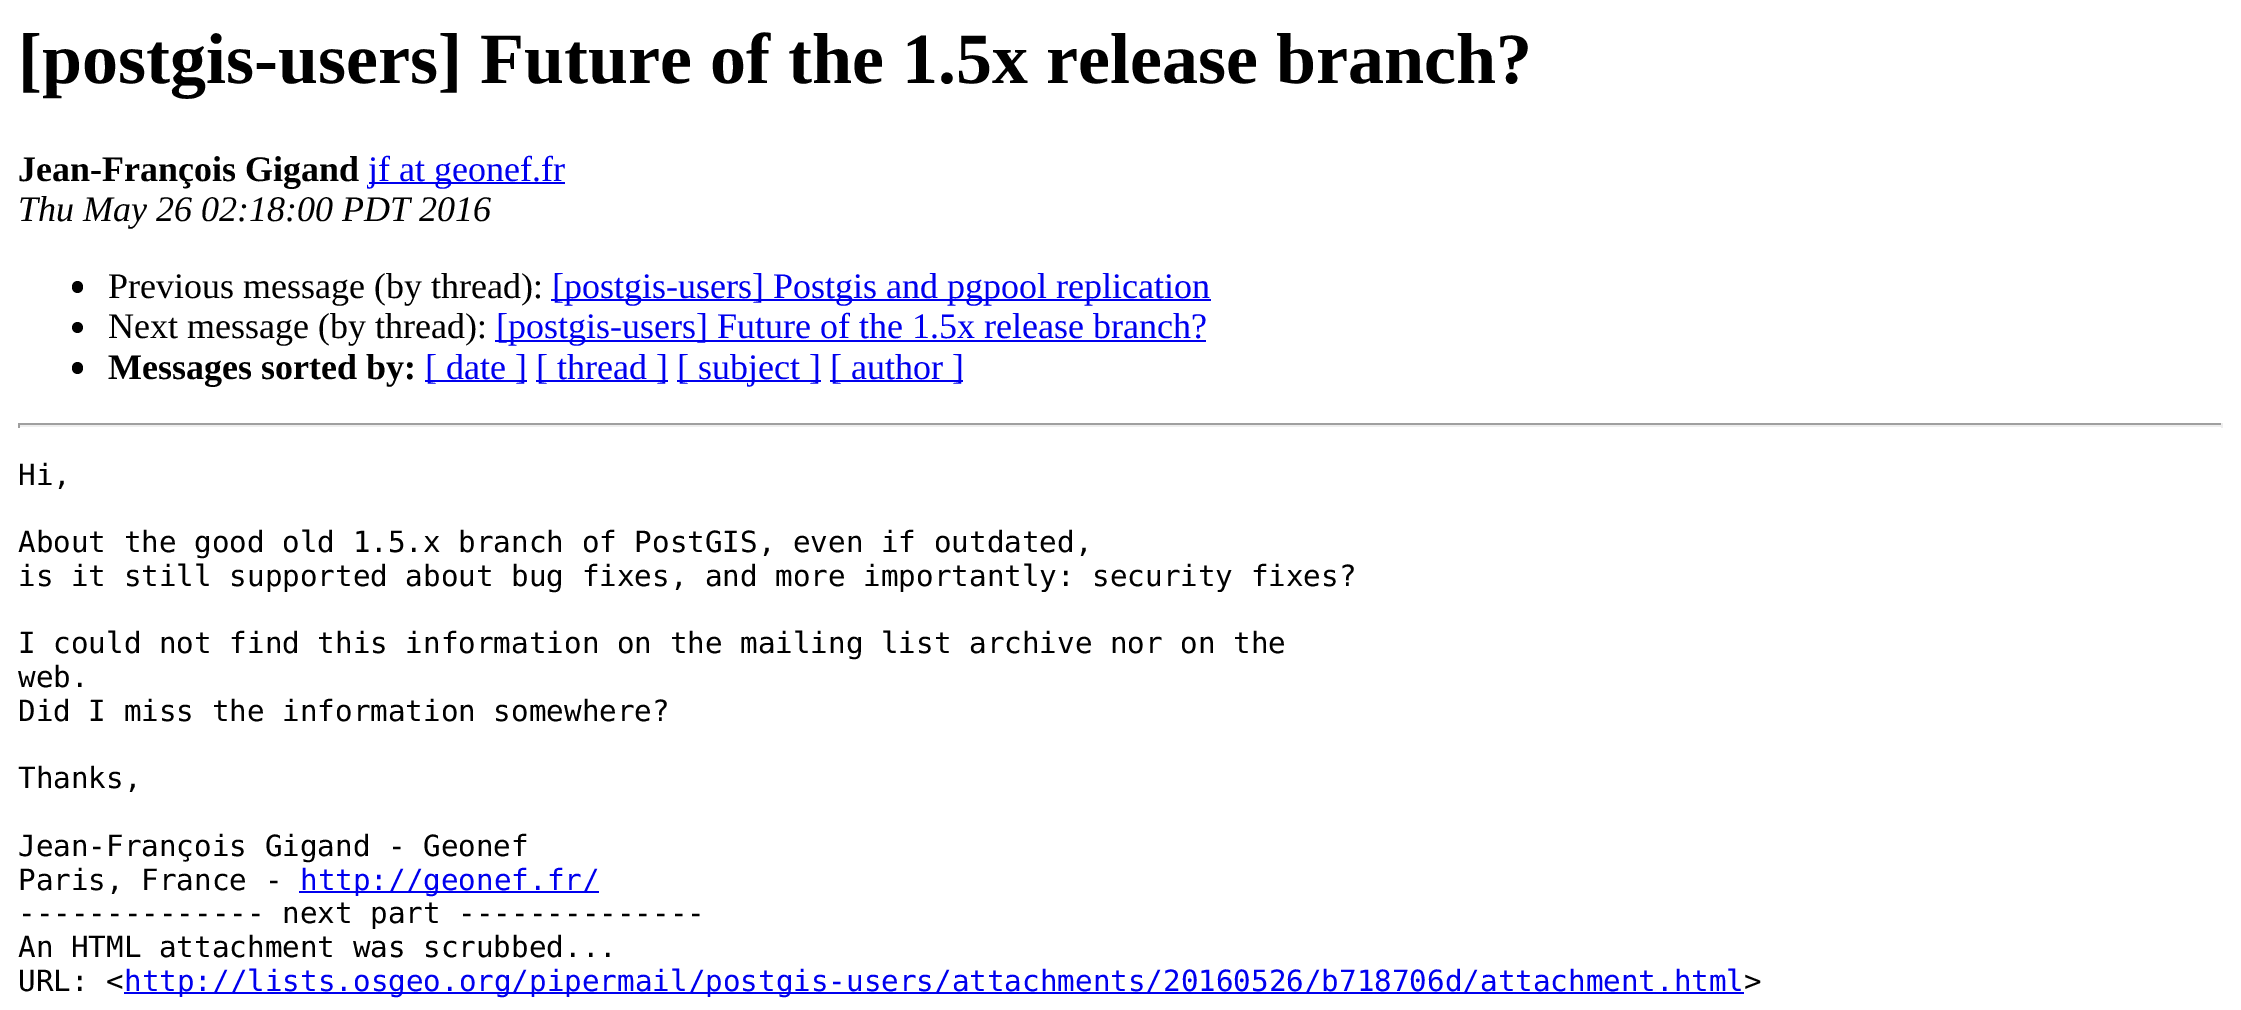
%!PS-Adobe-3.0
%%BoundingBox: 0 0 2241 1010
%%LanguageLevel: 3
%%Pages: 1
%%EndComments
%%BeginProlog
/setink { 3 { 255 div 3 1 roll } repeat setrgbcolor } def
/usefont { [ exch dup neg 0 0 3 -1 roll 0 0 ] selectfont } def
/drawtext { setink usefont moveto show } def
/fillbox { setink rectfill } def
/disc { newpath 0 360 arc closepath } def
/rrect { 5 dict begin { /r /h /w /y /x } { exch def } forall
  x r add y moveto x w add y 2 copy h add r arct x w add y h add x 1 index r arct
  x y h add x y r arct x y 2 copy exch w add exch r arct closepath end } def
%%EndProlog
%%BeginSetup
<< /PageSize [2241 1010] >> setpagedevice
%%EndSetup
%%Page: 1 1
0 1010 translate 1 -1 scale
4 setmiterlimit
0 0 2241 1010 255 255 255 fillbox
([postgis-users] Future of the 1.5x release branch?) 18 83 /LiberationSerif-Bold 72 0 0 0 drawtext
(Jean-François Gigand) 18 181 /LiberationSerif-Bold 36 0 0 0 drawtext
369 182 196 2 0 0 238 fillbox
(jf at geonef.fr) 368 181 /LiberationSerif-Regular 36 0 0 238 drawtext
(Thu May 26 02:18:00 PDT 2016) 18 221 /LiberationSerif-Italic 36 0 0 0 drawtext
72 281 11 12 5.5 rrect fill
(Previous message \(by thread\):) 108 298 /LiberationSerif-Regular 36 0 0 0 drawtext
551 299 660 2 0 0 238 fillbox
([postgis-users] Postgis and pgpool replication) 552 298 /LiberationSerif-Regular 36 0 0 238 drawtext
0 0 0 setink
77.5 327.5 5.5 disc fill
(Next message \(by thread\):) 108 338 /LiberationSerif-Regular 36 0 0 0 drawtext
495 340 711 2 0 0 238 fillbox
([postgis-users] Future of the 1.5x release branch?) 496 338 /LiberationSerif-Regular 36 0 0 238 drawtext
0 0 0 setink
72 362 11 12 5.5 rrect fill
(Messages sorted by:) 108 379 /LiberationSerif-Bold 36 0 0 0 drawtext
425 380 102 2 0 0 238 fillbox
([ date ]) 425 379 /LiberationSerif-Regular 36 0 0 238 drawtext
536 380 132 2 0 0 238 fillbox
([ thread ]) 536 379 /LiberationSerif-Regular 36 0 0 238 drawtext
677 380 144 2 0 0 238 fillbox
([ subject ]) 677 379 /LiberationSerif-Regular 36 0 0 238 drawtext
830 380 133 2 0 0 238 fillbox
([ author ]) 830 379 /LiberationSerif-Regular 36 0 0 238 drawtext
18 423 2205 2 159 159 159 fillbox
2221 423 2 5 238 238 238 fillbox
18 425 2205 2 238 238 238 fillbox
18 423 2 5 159 159 159 fillbox
(Hi,) 18 485 /DejaVuSansMono-Regular 29.25 0 0 0 drawtext
(About the good old 1.5.x branch of PostGIS, even if outdated,) 18 552 /DejaVuSansMono-Regular 29.25 0 0 0 drawtext
(is it still supported about bug fixes, and more importantly: security fixes?) 18 586 /DejaVuSansMono-Regular 29.25 0 0 0 drawtext
(I could not find this information on the mailing list archive nor on the) 18 653 /DejaVuSansMono-Regular 29.25 0 0 0 drawtext
(web.) 18 687 /DejaVuSansMono-Regular 29.25 0 0 0 drawtext
(Did I miss the information somewhere?) 18 721 /DejaVuSansMono-Regular 29.25 0 0 0 drawtext
(Thanks,) 18 788 /DejaVuSansMono-Regular 29.25 0 0 0 drawtext
(Jean-François Gigand - Geonef) 18 856 /DejaVuSansMono-Regular 29.25 0 0 0 drawtext
(Paris, France -) 18 890 /DejaVuSansMono-Regular 29.25 0 0 0 drawtext
299 891 300 2 0 0 238 fillbox
(http://geonef.fr/) 300 890 /DejaVuSansMono-Regular 29.25 0 0 238 drawtext
(-------------- next part --------------) 18 923 /DejaVuSansMono-Regular 29.25 0 0 0 drawtext
(An HTML attachment was scrubbed...) 18 957 /DejaVuSansMono-Regular 29.25 0 0 0 drawtext
(URL: <) 18 991 /DejaVuSansMono-Regular 29.25 0 0 0 drawtext
124 992 1620 2 0 0 238 fillbox
(http://lists.osgeo.org/pipermail/postgis-users/attachments/20160526/b718706d/attachment.html) 124 991 /DejaVuSansMono-Regular 29.25 0 0 238 drawtext
(>) 1744 991 /DejaVuSansMono-Regular 29.25 0 0 0 drawtext
showpage
%%EOF
